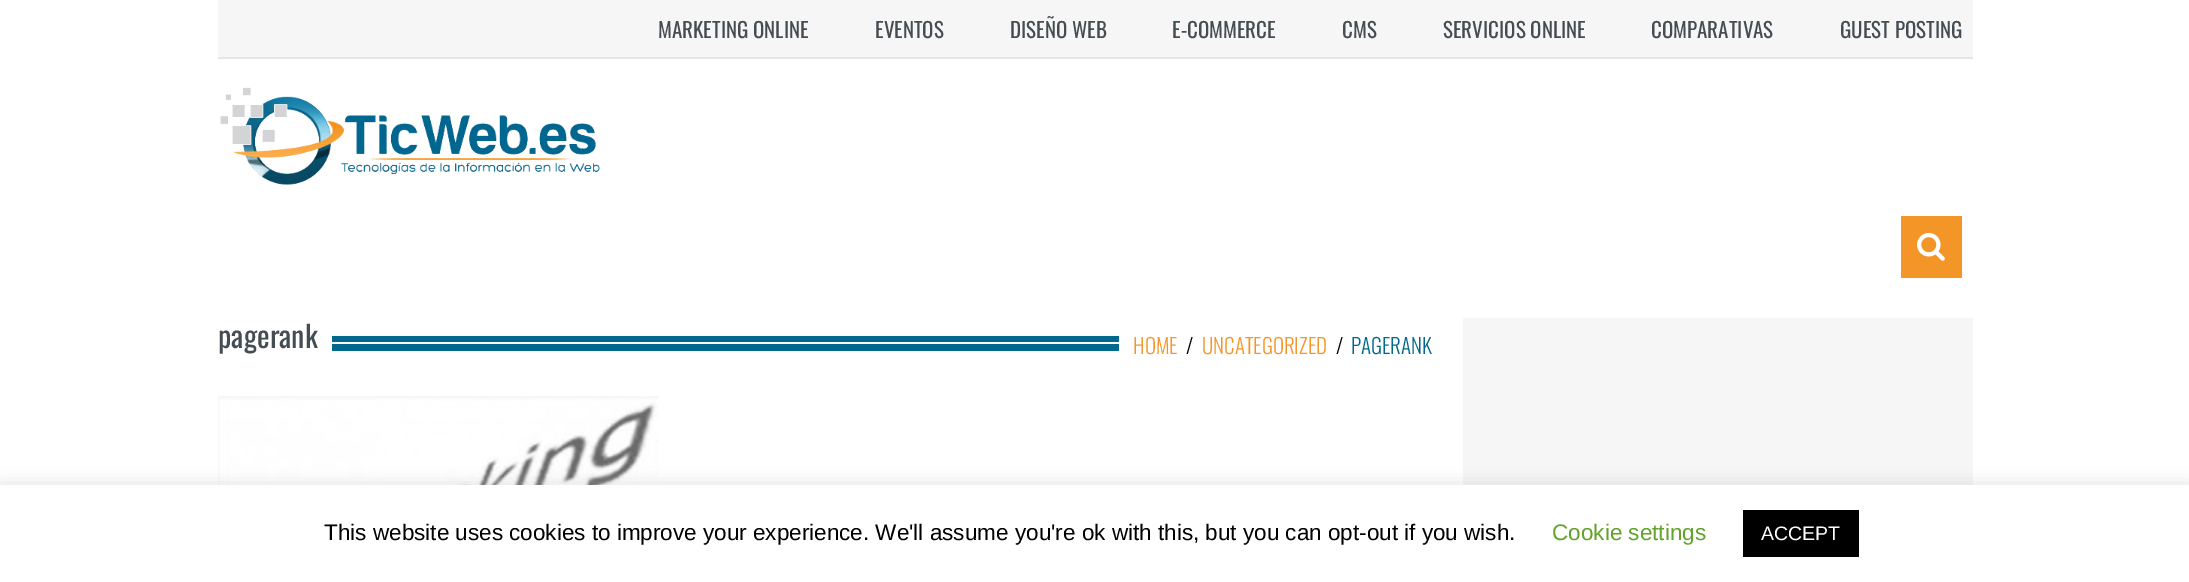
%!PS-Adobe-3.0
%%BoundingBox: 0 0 2189 582
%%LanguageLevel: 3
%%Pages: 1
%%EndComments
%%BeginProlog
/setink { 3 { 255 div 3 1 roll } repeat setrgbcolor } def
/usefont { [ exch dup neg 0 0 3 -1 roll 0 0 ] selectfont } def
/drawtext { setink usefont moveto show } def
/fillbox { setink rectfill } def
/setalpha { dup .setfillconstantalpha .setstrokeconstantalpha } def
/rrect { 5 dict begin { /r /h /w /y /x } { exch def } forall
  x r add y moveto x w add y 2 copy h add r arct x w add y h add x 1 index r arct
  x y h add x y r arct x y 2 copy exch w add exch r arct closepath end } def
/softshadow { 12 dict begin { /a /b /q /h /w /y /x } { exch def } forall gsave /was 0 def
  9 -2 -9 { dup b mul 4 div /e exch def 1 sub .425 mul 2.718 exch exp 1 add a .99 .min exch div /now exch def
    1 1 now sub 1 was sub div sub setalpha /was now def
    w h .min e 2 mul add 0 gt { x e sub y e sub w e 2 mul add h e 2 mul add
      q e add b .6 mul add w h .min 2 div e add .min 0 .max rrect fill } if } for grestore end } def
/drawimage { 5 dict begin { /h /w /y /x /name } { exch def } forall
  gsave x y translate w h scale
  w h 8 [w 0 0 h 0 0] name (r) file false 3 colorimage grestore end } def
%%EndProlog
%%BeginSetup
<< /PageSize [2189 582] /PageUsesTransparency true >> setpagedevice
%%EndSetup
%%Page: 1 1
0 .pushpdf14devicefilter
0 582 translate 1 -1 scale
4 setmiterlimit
0 0 2189 582 255 255 255 fillbox
218 0 1755 57 246 246 246 fillbox
218 57 1755 2 230 230 230 fillbox
(MARKETING ONLINE) 658 38 /Oswald-Regular 21 68 77 82 drawtext
(EVENTOS) 875 38 /Oswald-Regular 21 68 77 82 drawtext
(DISEÑO WEB) 1010 38 /Oswald-Regular 21 68 77 82 drawtext
(E-COMMERCE) 1172 38 /Oswald-Regular 21 68 77 82 drawtext
(CMS) 1342 38 /Oswald-Regular 21 68 77 82 drawtext
(SERVICIOS ONLINE) 1443 38 /Oswald-Regular 21 68 77 82 drawtext
(COMPARATIVAS) 1651 38 /Oswald-Regular 21 68 77 82 drawtext
(GUEST POSTING) 1840 38 /Oswald-Regular 21 68 77 82 drawtext
(assets/img1.rgb) 220 87 380 98 drawimage
1901 216 61 62 243 150 39 fillbox
(assets/img2.rgb) 1917 232 28 29 drawimage
(pagerank) 218 348 /Oswald-Regular 30 68 77 82 drawtext
332 336 787 15 0 103 143 fillbox
332 342 787 2 255 255 255 fillbox
(assets/img3.rgb) 218 396 441 89 drawimage
(HOME) 1133 354 /Oswald-Light 21 243 149 40 drawtext
(/) 1186 354 /Oswald-Light 21 0 0 0 drawtext
(UNCATEGORIZED) 1202 354 /Oswald-Light 21 243 149 40 drawtext
(/) 1336 354 /Oswald-Light 21 0 0 0 drawtext
(PAGERANK) 1351 354 /Oswald-Light 21 0 103 143 drawtext
1463 318 510 167 246 246 246 fillbox
172 171 171 setink
0 483 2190 98 0 7.5 0.3 softshadow
0 485 2189 97 255 255 255 fillbox
(This website uses cookies to improve your experience. We'll assume you're ok with this, but you can opt-out if you wish.) 324 540 /LiberationSans-Regular 22.5 0 0 0 drawtext
(Cookie settings) 1552 540 /LiberationSans-Regular 22.5 98 163 41 drawtext
1743 510 116 47 0 0 0 fillbox
(ACCEPT) 1761 540 /LiberationSans-Regular 19.5 255 255 255 drawtext
.poppdf14devicefilter showpage
%%EOF
